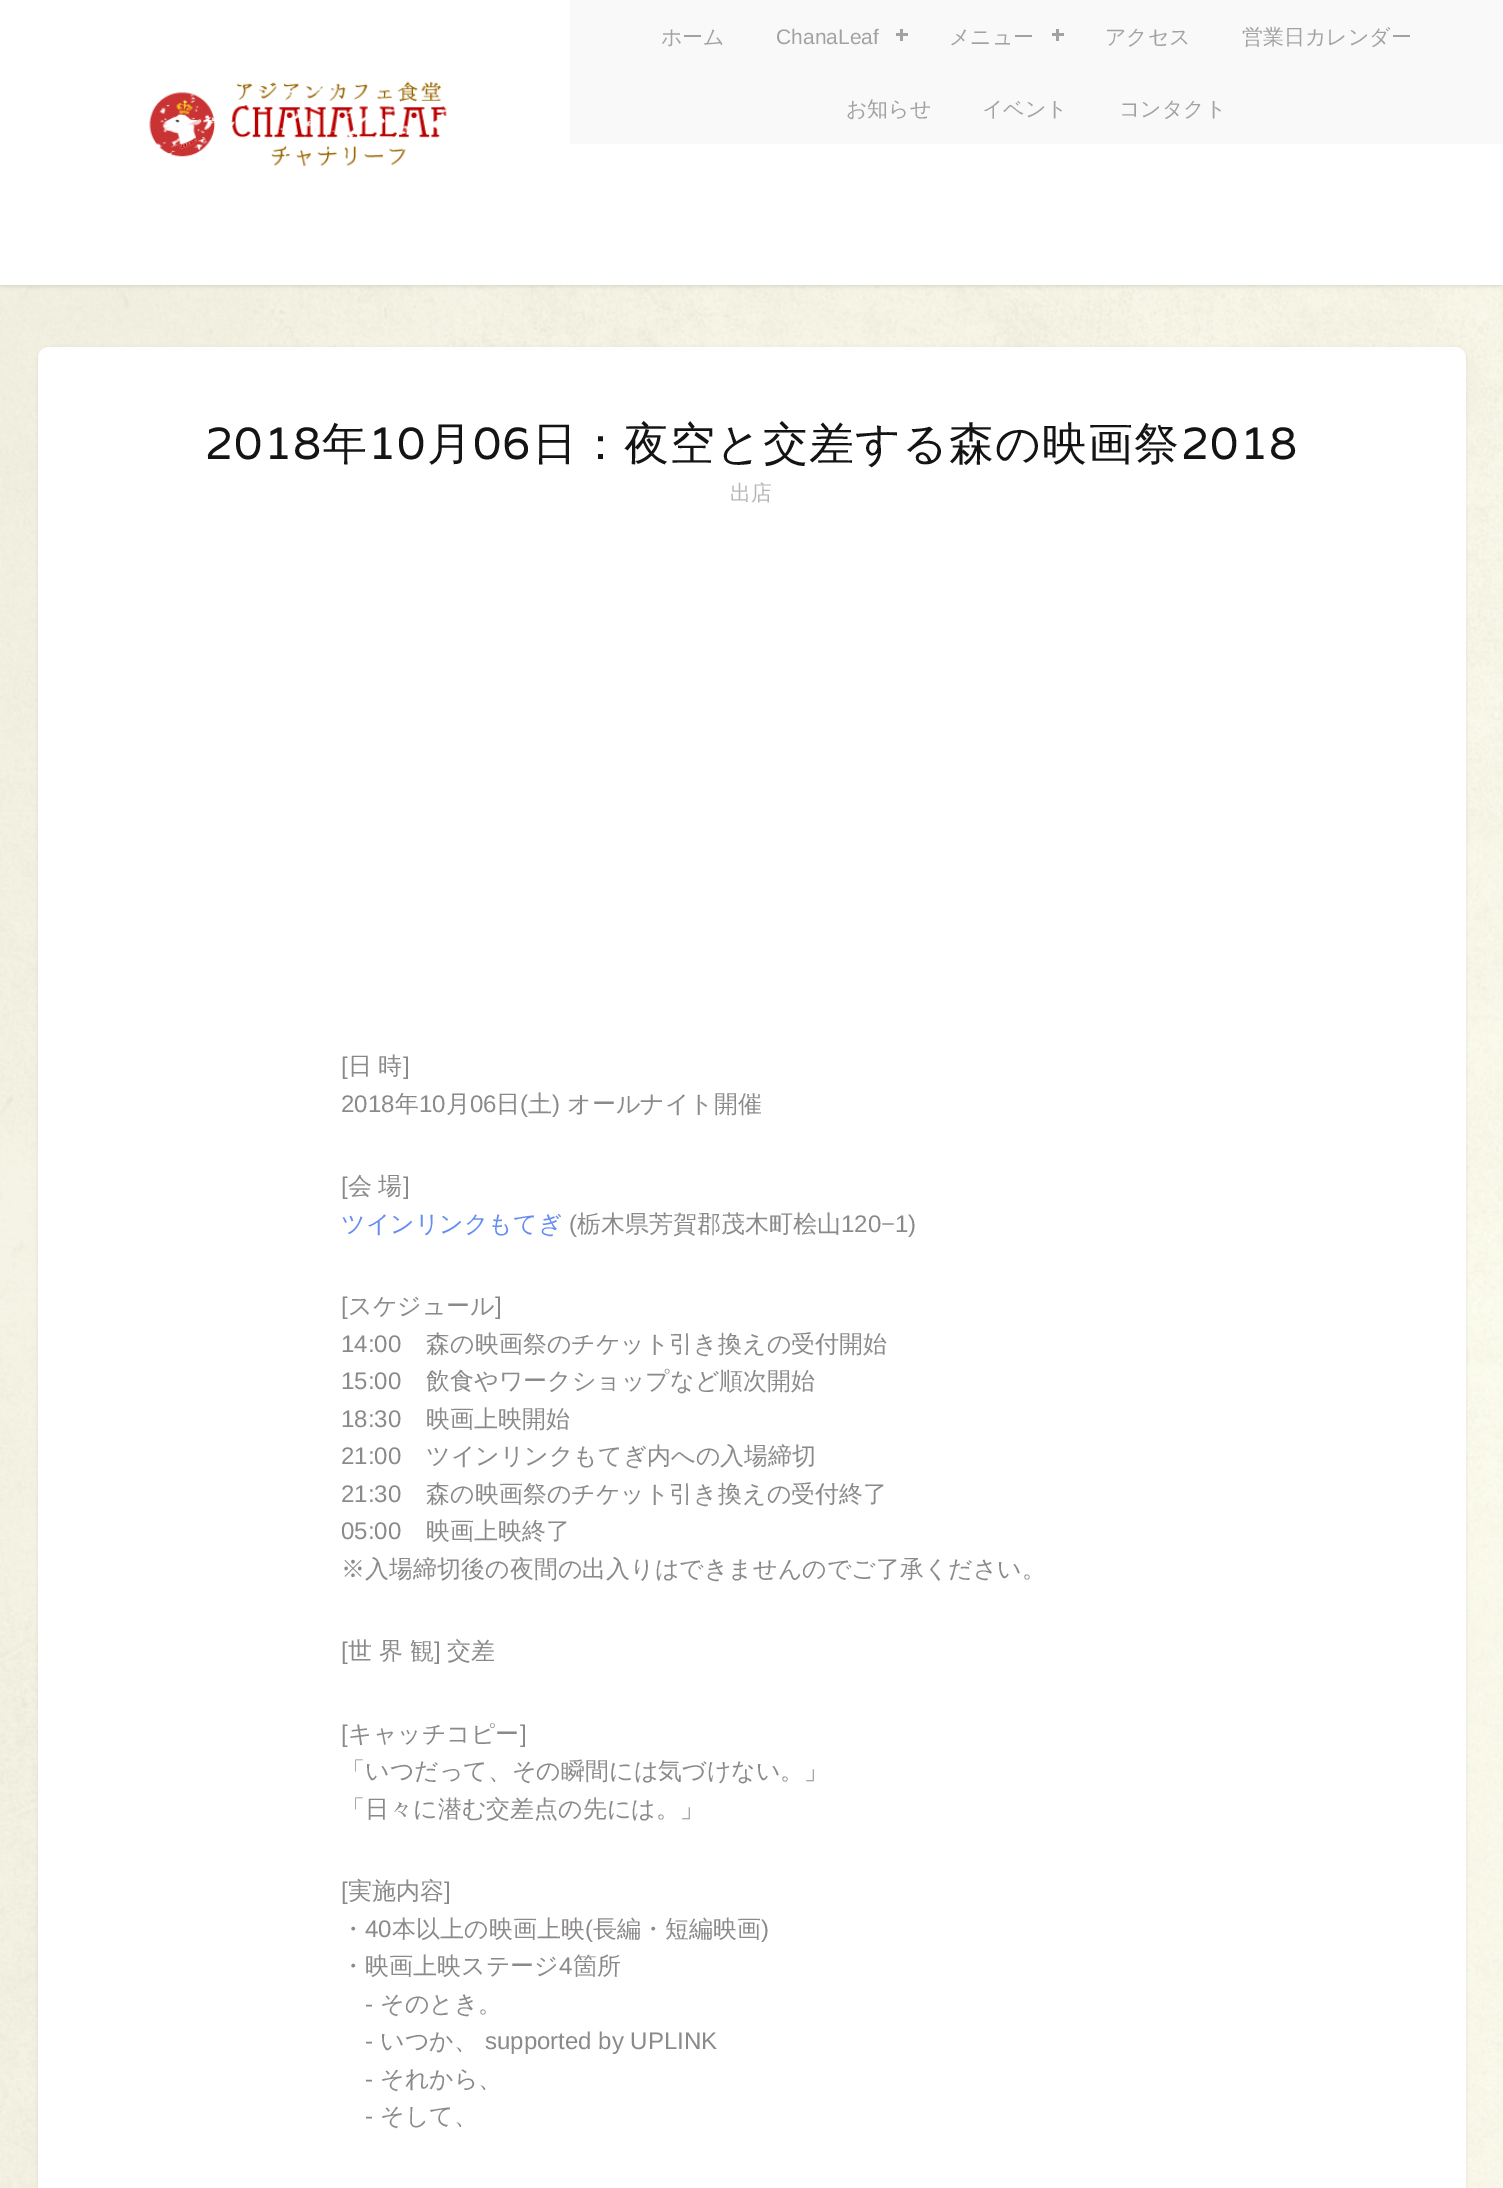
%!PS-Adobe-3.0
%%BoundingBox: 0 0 1503 2188
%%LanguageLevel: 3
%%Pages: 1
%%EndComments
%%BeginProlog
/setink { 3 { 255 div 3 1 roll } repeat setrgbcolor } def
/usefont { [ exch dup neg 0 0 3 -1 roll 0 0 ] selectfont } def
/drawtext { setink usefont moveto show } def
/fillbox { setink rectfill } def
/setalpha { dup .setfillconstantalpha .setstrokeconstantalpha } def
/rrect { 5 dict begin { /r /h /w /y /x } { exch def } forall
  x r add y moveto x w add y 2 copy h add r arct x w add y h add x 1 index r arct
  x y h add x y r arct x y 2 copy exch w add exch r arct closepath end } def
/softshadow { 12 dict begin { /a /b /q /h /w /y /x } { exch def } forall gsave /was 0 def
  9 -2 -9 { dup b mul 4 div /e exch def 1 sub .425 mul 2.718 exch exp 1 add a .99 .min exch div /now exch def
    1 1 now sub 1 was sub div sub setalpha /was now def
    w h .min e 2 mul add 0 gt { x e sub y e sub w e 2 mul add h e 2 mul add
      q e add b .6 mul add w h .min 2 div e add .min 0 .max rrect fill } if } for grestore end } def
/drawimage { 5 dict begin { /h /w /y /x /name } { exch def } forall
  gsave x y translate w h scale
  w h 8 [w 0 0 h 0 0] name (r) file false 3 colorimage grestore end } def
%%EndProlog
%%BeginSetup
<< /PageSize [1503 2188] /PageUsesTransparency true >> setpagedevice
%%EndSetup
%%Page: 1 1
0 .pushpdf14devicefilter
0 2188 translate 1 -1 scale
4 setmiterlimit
0 0 1503 2188 255 255 255 fillbox
(assets/img1.rgb) 0 285 1503 1903 drawimage
50 50 50 setink
0 2 1503 285 0 1.5 0.1 softshadow
0 0 1503 285 255 255 255 fillbox
(assets/img2.rgb) 149 81 298 85 drawimage
570 0 933 144 249 249 249 fillbox
(ホーム) 661 44 /WenQuanYiZenHei-Medium 21 162 162 162 drawtext
(ChanaLeaf) 776 44 /LiberationSans-Regular 21 162 162 162 drawtext
900 29 3 12 162 162 162 fillbox
896 33 12 3 162 162 162 fillbox
(メニュー) 949 44 /WenQuanYiZenHei-Medium 21 162 162 162 drawtext
1056 29 3 12 162 162 162 fillbox
1052 33 12 3 162 162 162 fillbox
(アクセス) 1105 44 /WenQuanYiZenHei-Medium 21 162 162 162 drawtext
(営業日カレンダー) 1242 44 /WenQuanYiZenHei-Medium 21 162 162 162 drawtext
(お知らせ) 846 116 /WenQuanYiZenHei-Medium 21 162 162 162 drawtext
(イベント) 982 116 /WenQuanYiZenHei-Medium 21 162 162 162 drawtext
(コンタクト) 1119 116 /WenQuanYiZenHei-Medium 21 162 162 162 drawtext
50 50 50 setink
38 348 1428 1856 11 1.5 0.1 softshadow
255 255 255 setink
38 347 1428 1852 11 rrect fill
/Varela-Regular 45 usefont
20 20 20 setink
205 459 moveto 1 0 (2018) ashow
/WenQuanYiZenHei-Medium 45 usefont
322 459 moveto 1 0 (年) ashow
/Varela-Regular 45 usefont
368 459 moveto 1 0 (10) ashow
/WenQuanYiZenHei-Medium 45 usefont
427 459 moveto 1 0 (月) ashow
/Varela-Regular 45 usefont
473 459 moveto 1 0 (06) ashow
/WenQuanYiZenHei-Medium 45 usefont
532 459 moveto 1 0 (日：夜空と交差する森の映画祭) ashow
/Varela-Regular 45 usefont
1181 459 moveto 1 0 (2018) ashow
(出店) 730 500 /WenQuanYiZenHei-Medium 21 184 180 180 drawtext
([) 341 1074 /LiberationSans-Regular 24 139 137 137 drawtext
/WenQuanYiZenHei-Medium 24 usefont
348 1074 moveto -1 0 32 (日 時) widthshow
(]) 403 1074 /LiberationSans-Regular 24 139 137 137 drawtext
(2018) 341 1112 /LiberationSans-Regular 24 139 137 137 drawtext
(年) 395 1112 /WenQuanYiZenHei-Medium 24 139 137 137 drawtext
(10) 419 1112 /LiberationSans-Regular 24 139 137 137 drawtext
(月) 446 1112 /WenQuanYiZenHei-Medium 24 139 137 137 drawtext
(06) 470 1112 /LiberationSans-Regular 24 139 137 137 drawtext
(日) 496 1112 /WenQuanYiZenHei-Medium 24 139 137 137 drawtext
(\() 520 1112 /LiberationSans-Regular 24 139 137 137 drawtext
(土) 528 1112 /WenQuanYiZenHei-Medium 24 139 137 137 drawtext
(\)) 552 1112 /LiberationSans-Regular 24 139 137 137 drawtext
(オールナイト開催) 567 1112 /WenQuanYiZenHei-Medium 24 139 137 137 drawtext
([) 341 1194 /LiberationSans-Regular 24 139 137 137 drawtext
/WenQuanYiZenHei-Medium 24 usefont
348 1194 moveto -1 0 32 (会 場) widthshow
(]) 403 1194 /LiberationSans-Regular 24 139 137 137 drawtext
(ツインリンクもてぎ) 341 1232 /WenQuanYiZenHei-Medium 24 101 140 240 drawtext
(\() 569 1232 /LiberationSans-Regular 24 139 137 137 drawtext
(栃木県芳賀郡茂木町桧山) 577 1232 /WenQuanYiZenHei-Medium 24 139 137 137 drawtext
(120−1\)) 841 1232 /LiberationSans-Regular 24 139 137 137 drawtext
([) 341 1314 /LiberationSans-Regular 24 139 137 137 drawtext
(スケジュール) 348 1314 /WenQuanYiZenHei-Medium 24 139 137 137 drawtext
(]) 495 1314 /LiberationSans-Regular 24 139 137 137 drawtext
(14:00) 341 1352 /LiberationSans-Regular 24 139 137 137 drawtext
(森の映画祭のチケット引き換えの受付開始) 426 1352 /WenQuanYiZenHei-Medium 24 139 137 137 drawtext
(15:00) 341 1389 /LiberationSans-Regular 24 139 137 137 drawtext
(飲食やワークショップなど順次開始) 426 1389 /WenQuanYiZenHei-Medium 24 139 137 137 drawtext
(18:30) 341 1427 /LiberationSans-Regular 24 139 137 137 drawtext
(映画上映開始) 426 1427 /WenQuanYiZenHei-Medium 24 139 137 137 drawtext
(21:00) 341 1464 /LiberationSans-Regular 24 139 137 137 drawtext
(ツインリンクもてぎ内への入場締切) 426 1464 /WenQuanYiZenHei-Medium 24 139 137 137 drawtext
(21:30) 341 1502 /LiberationSans-Regular 24 139 137 137 drawtext
(森の映画祭のチケット引き換えの受付終了) 426 1502 /WenQuanYiZenHei-Medium 24 139 137 137 drawtext
(05:00) 341 1539 /LiberationSans-Regular 24 139 137 137 drawtext
(映画上映終了) 426 1539 /WenQuanYiZenHei-Medium 24 139 137 137 drawtext
(※入場締切後の夜間の出入りはできませんのでご了承ください。) 341 1577 /WenQuanYiZenHei-Medium 24 139 137 137 drawtext
([) 341 1659 /LiberationSans-Regular 24 139 137 137 drawtext
(世 界 観) 348 1659 /WenQuanYiZenHei-Medium 24 139 137 137 drawtext
(]) 434 1659 /LiberationSans-Regular 24 139 137 137 drawtext
(交差) 447 1659 /WenQuanYiZenHei-Medium 24 139 137 137 drawtext
([) 341 1742 /LiberationSans-Regular 24 139 137 137 drawtext
(キャッチコピー) 348 1742 /WenQuanYiZenHei-Medium 24 139 137 137 drawtext
(]) 520 1742 /LiberationSans-Regular 24 139 137 137 drawtext
(「いつだって、その瞬間には気づけない。」) 341 1779 /WenQuanYiZenHei-Medium 24 139 137 137 drawtext
(「日々に潜む交差点の先には。」) 341 1817 /WenQuanYiZenHei-Medium 24 139 137 137 drawtext
([) 341 1899 /LiberationSans-Regular 24 139 137 137 drawtext
(実施内容) 348 1899 /WenQuanYiZenHei-Medium 24 139 137 137 drawtext
(]) 444 1899 /LiberationSans-Regular 24 139 137 137 drawtext
(・) 341 1937 /WenQuanYiZenHei-Medium 24 139 137 137 drawtext
(40) 365 1937 /LiberationSans-Regular 24 139 137 137 drawtext
(本以上の映画上映) 392 1937 /WenQuanYiZenHei-Medium 24 139 137 137 drawtext
(\() 585 1937 /LiberationSans-Regular 24 139 137 137 drawtext
(長編・短編映画) 593 1937 /WenQuanYiZenHei-Medium 24 139 137 137 drawtext
(\)) 761 1937 /LiberationSans-Regular 24 139 137 137 drawtext
(・映画上映ステージ) 341 1974 /WenQuanYiZenHei-Medium 24 139 137 137 drawtext
(4) 559 1974 /LiberationSans-Regular 24 139 137 137 drawtext
(箇所) 573 1974 /WenQuanYiZenHei-Medium 24 139 137 137 drawtext
(-) 365 2012 /LiberationSans-Regular 24 139 137 137 drawtext
(そのとき。) 380 2012 /WenQuanYiZenHei-Medium 24 139 137 137 drawtext
(-) 365 2049 /LiberationSans-Regular 24 139 137 137 drawtext
(いつか、) 380 2049 /WenQuanYiZenHei-Medium 24 139 137 137 drawtext
(supported by UPLINK) 485 2049 /LiberationSans-Regular 24 139 137 137 drawtext
(-) 365 2087 /LiberationSans-Regular 24 139 137 137 drawtext
(それから、) 380 2087 /WenQuanYiZenHei-Medium 24 139 137 137 drawtext
(-) 365 2124 /LiberationSans-Regular 24 139 137 137 drawtext
(そして、) 380 2124 /WenQuanYiZenHei-Medium 24 139 137 137 drawtext
.poppdf14devicefilter showpage
%%EOF
